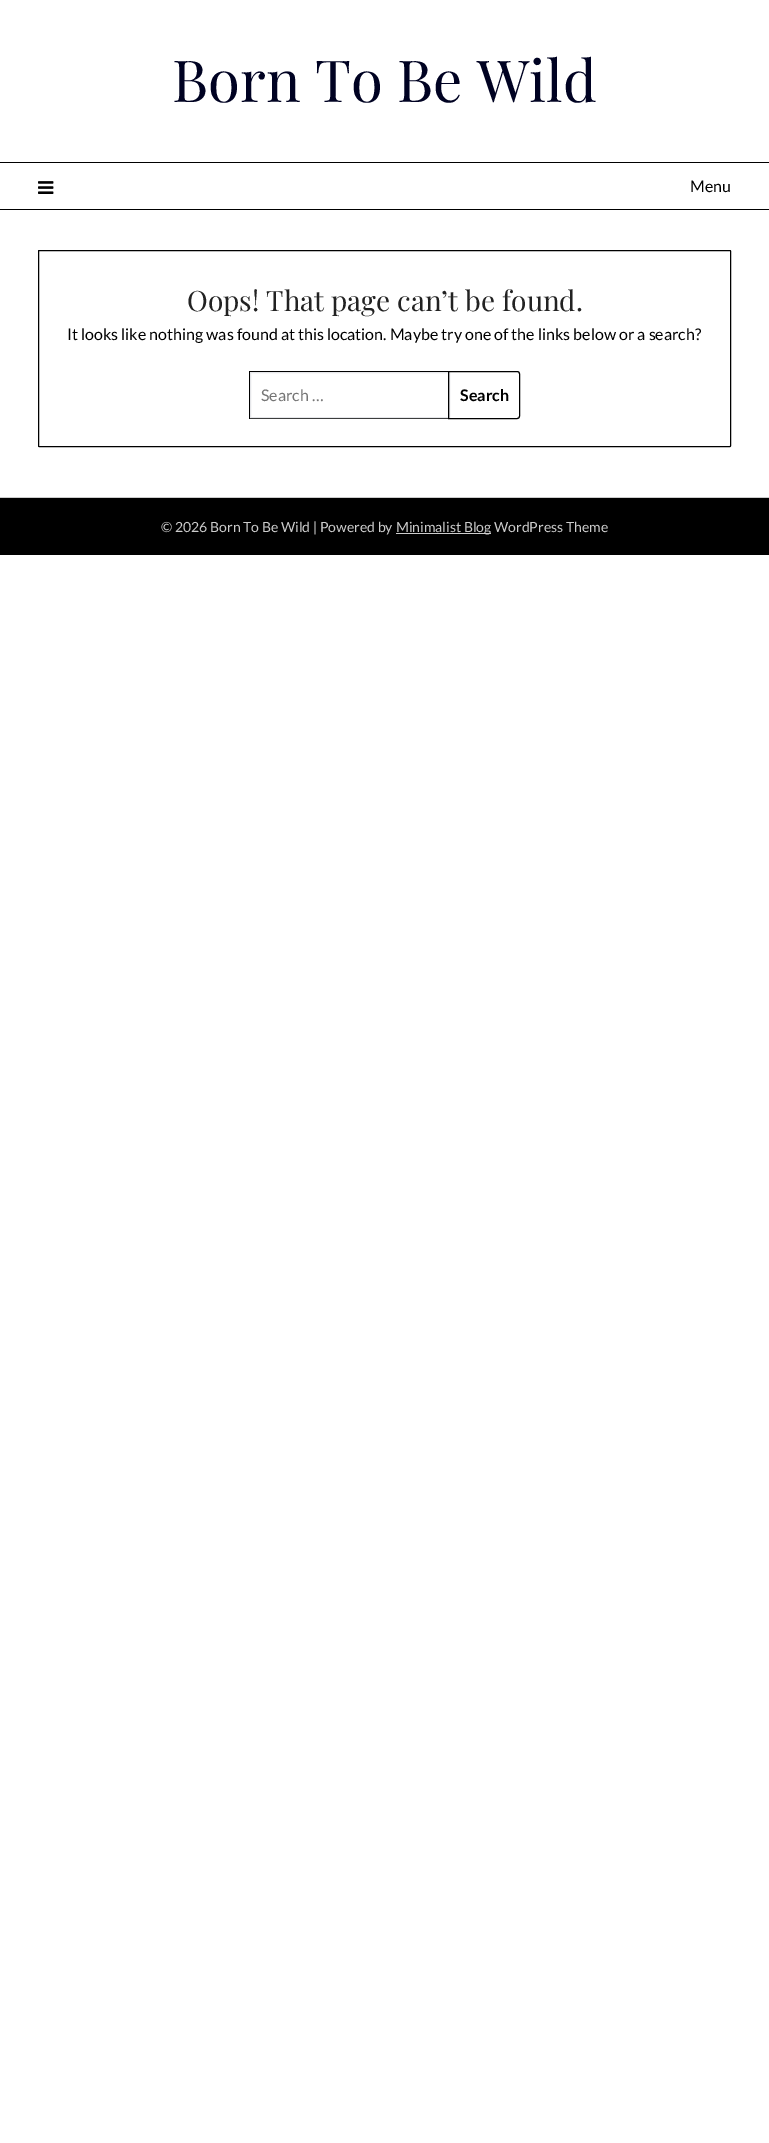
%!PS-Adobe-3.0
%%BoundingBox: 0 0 769 2143
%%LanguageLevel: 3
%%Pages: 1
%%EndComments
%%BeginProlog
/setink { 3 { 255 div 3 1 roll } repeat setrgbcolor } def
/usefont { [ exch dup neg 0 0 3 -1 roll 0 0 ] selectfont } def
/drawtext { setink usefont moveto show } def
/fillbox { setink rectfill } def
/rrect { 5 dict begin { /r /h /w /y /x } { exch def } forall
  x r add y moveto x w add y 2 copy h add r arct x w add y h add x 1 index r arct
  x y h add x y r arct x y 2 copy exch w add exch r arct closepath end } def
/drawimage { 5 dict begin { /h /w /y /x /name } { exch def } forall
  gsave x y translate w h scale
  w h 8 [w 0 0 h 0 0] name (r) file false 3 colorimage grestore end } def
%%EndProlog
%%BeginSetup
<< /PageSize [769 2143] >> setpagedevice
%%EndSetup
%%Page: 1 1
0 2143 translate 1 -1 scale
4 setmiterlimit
0 0 769 2143 255 255 255 fillbox
(Born To Be Wild) 172 102 /PlayfairDisplay-Regular 58 0 2 34 drawtext
0 162 769 1 0 0 0 fillbox
0 209 769 1 0 0 0 fillbox
(assets/img1.rgb) 38 181 16 13 drawimage
(Menu) 690 192 /Lato-Regular 16 0 0 0 drawtext
38.5 250.5 692 196 0.5 rrect stroke
(Oops! That page can’t be found.) 187 311 /PlayfairDisplay-Regular 28 34 34 34 drawtext
(It looks like nothing was found at this location. Maybe try one of the links below or a search?) 67 340 /Lato-Regular 16 0 0 0 drawtext
249 371 201 1 0 0 0 fillbox
249 418 201 1 0 0 0 fillbox
249 371 1 48 0 0 0 fillbox
229 230 233 setink
250.5 372.5 199 45 rectstroke
(Search …) 261 401 /Lato-Regular 16 117 117 117 drawtext
0 0 0 setink
448.5 371.5 moveto 517 371.5 lineto 518.5 371.5 519.5 372.5 519.5 374 curveto 519.5 416 lineto 519.5 417.5 518.5 418.5 517 418.5 curveto 448.5 418.5 lineto closepath stroke
(Search) 460 401 /Lato-Bold 16 0 0 0 drawtext
0 498 769 57 0 0 0 fillbox
0 497 769 1 204 204 204 fillbox
(© 2026 Born To Be Wild | Powered by) 161 532 /Lato-Regular 14 204 204 204 drawtext
396 533 95 1 204 204 204 fillbox
(Minimalist Blog WordPress Theme) 396 532 /Lato-Regular 14 204 204 204 drawtext
showpage
%%EOF
